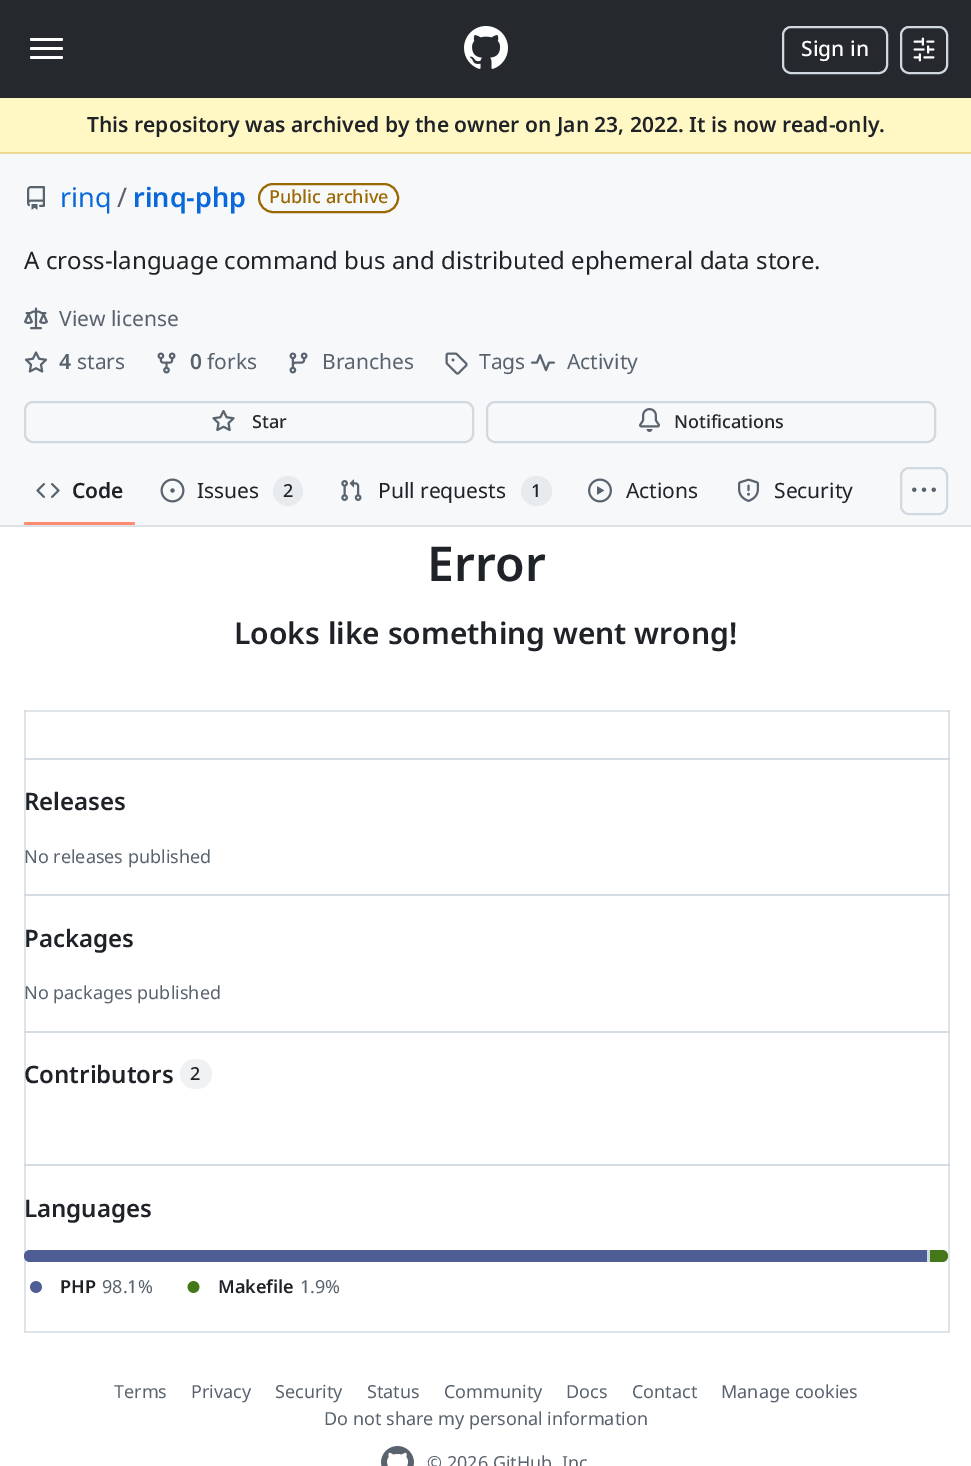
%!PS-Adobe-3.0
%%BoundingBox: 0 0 971 1466
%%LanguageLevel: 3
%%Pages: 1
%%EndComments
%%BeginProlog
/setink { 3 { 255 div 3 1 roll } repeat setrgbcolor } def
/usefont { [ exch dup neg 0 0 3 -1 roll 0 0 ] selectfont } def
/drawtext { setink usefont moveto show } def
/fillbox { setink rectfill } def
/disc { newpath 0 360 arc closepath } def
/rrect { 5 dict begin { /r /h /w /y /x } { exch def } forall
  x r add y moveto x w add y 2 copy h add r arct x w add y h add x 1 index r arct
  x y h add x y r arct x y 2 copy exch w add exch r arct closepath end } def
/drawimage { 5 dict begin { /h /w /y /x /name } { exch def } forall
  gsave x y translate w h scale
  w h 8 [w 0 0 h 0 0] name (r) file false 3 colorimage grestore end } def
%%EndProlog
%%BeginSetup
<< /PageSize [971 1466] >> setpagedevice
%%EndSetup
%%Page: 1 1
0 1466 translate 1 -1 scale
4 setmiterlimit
0 0 971 1466 255 255 255 fillbox
24 710 2 622 223 228 233 fillbox
948 710 2 456 223 228 233 fillbox
24 1331 926 2 223 228 233 fillbox
24 1331 2 1 213 220 227 fillbox
948 1164 2 168 223 228 233 fillbox
948 1331 2 1 213 220 227 fillbox
0 0 971 98 37 41 46 fillbox
255 255 255 setink
30 38 33 3 1.5 rrect fill
30 47 33 3 1.5 rrect fill
30 56 33 3 1.5 rrect fill
(assets/img1.rgb) 464 26 44 43 drawimage
209 217 224 setink
2 setlinewidth
783 27 104 46 8 rrect stroke
(Sign in) 801 56 /NotoSans-Medium 21 255 255 255 drawtext
209 217 224 setink
901 27 46 46 8 rrect stroke
(assets/img2.rgb) 913 37 22 25 drawimage
0 98 971 54 255 248 197 fillbox
0 152 971 1 238 216 136 fillbox
(This repository was archived by the owner on Jan 23, 2022. It is now read-only.) 87 132 /NotoSans-SemiBold 21 31 35 40 drawtext
0 154 971 371 246 248 250 fillbox
0 153 971 1 232 216 168 fillbox
(assets/img3.rgb) 27 186 18 24 drawimage
(rinq) 60 207 /NotoSans-Regular 27 9 105 218 drawtext
(/) 117 207 /NotoSans-Regular 27 89 99 110 drawtext
(rinq-php) 133 207 /NotoSans-SemiBold 27 9 105 218 drawtext
154 103 0 setink
259 184 139 28 14 rrect stroke
(Public archive) 269 203 /NotoSans-Medium 18 154 103 0 drawtext
(A cross-language command bus and distributed ephemeral data store.) 24 269 /NotoSans-Regular 24 31 35 40 drawtext
(assets/img4.rgb) 24 307 24 23 drawimage
(View license) 59 326 /NotoSans-Regular 21 89 99 110 drawtext
(assets/img5.rgb) 24 351 24 22 drawimage
(4) 59 369 /NotoSans-SemiBold 21 89 99 110 drawtext
(stars) 77 369 /NotoSans-Regular 21 89 99 110 drawtext
(assets/img6.rgb) 157 352 19 22 drawimage
(0) 190 369 /NotoSans-SemiBold 21 89 99 110 drawtext
(forks) 207 369 /NotoSans-Regular 21 89 99 110 drawtext
(assets/img7.rgb) 289 352 19 22 drawimage
(Branches) 322 369 /NotoSans-Regular 21 89 99 110 drawtext
(assets/img8.rgb) 445 352 23 23 drawimage
(Tags) 479 369 /NotoSans-Regular 21 89 99 110 drawtext
(assets/img9.rgb) 531 354 24 18 drawimage
(Activity) 567 369 /NotoSans-Regular 21 89 99 110 drawtext
209 217 224 setink
25 402 448 40 8 rrect stroke
(assets/img10.rgb) 212 409 23 23 drawimage
(Star) 252 428 /NotoSans-Medium 18 37 41 46 drawtext
209 217 224 setink
487 402 448 40 8 rrect stroke
(assets/img11.rgb) 639 408 21 24 drawimage
(Notifications) 674 428 /NotoSans-Medium 18 37 41 46 drawtext
0 525 971 2 220 226 232 fillbox
(assets/img12.rgb) 36 483 24 15 drawimage
(Code) 72 498 /NotoSans-SemiBold 21 31 35 40 drawtext
253 140 115 setink
24 522 111 3 1.5 rrect fill
(assets/img13.rgb) 160 478 25 25 drawimage
(Issues) 197 498 /NotoSans-Regular 21 31 35 40 drawtext
232 235 238 setink
288 491 15 disc fill
(2) 283 497 /NotoSans-Medium 18 31 35 40 drawtext
(assets/img14.rgb) 341 479 21 22 drawimage
(Pull requests) 378 498 /NotoSans-Regular 21 31 35 40 drawtext
232 235 238 setink
521 476 31 30 15 rrect fill
(1) 531 497 /NotoSans-Medium 18 31 35 40 drawtext
(assets/img15.rgb) 588 478 24 25 drawimage
(Actions) 626 498 /NotoSans-Regular 21 31 35 40 drawtext
(assets/img16.rgb) 738 478 21 24 drawimage
(Security) 774 498 /NotoSans-Regular 21 31 35 40 drawtext
209 217 224 setink
901 468 46 46 8 rrect stroke
(assets/img17.rgb) 912 487 24 5 drawimage
(Error) 427 581 /NotoSans-SemiBold 48 31 35 40 drawtext
(Looks like something went wrong!) 234 644 /NotoSans-SemiBold 30 31 35 40 drawtext
24 710 926 2 223 228 233 fillbox
24 710 2 2 213 220 227 fillbox
948 710 2 2 213 220 227 fillbox
24 758 926 2 213 220 227 fillbox
24 759 2 1 210 218 225 fillbox
24 758 2 1 209 217 224 fillbox
948 759 2 1 210 218 225 fillbox
948 758 2 1 209 217 224 fillbox
(Releases) 24 810 /NotoSans-SemiBold 24 31 35 40 drawtext
(No releases published) 24 863 /NotoSans-Regular 18 89 99 110 drawtext
24 894 926 2 213 220 227 fillbox
24 894 2 2 209 217 224 fillbox
948 894 2 2 209 217 224 fillbox
(Packages) 24 947 /NotoSans-SemiBold 24 31 35 40 drawtext
(No packages published) 24 999 /NotoSans-Regular 18 89 99 110 drawtext
24 1031 926 2 213 220 227 fillbox
24 1032 2 1 210 218 225 fillbox
24 1031 2 1 209 217 224 fillbox
948 1032 2 1 210 218 225 fillbox
948 1031 2 1 209 217 224 fillbox
(Contributors) 24 1083 /NotoSans-SemiBold 24 31 35 40 drawtext
240 241 243 setink
180 1059 32 30 15 rrect fill
(2) 190 1080 /NotoSans-Medium 18 31 35 40 drawtext
24 1164 926 2 213 220 227 fillbox
24 1164 2 2 209 217 224 fillbox
948 1164 2 2 209 217 224 fillbox
(Languages) 24 1217 /NotoSans-SemiBold 24 31 35 40 drawtext
209 217 224 setink
24 1250 924 12 6 rrect fill
79 93 149 setink
30 1250 moveto 927 1250 lineto 927 1262 lineto 30 1262 lineto 26.5 1262 24 1259.5 24 1256 curveto 24 1252.5 26.5 1250 30 1250 curveto closepath fill
66 120 25 setink
930 1250 moveto 942 1250 lineto 945.5 1250 948 1252.5 948 1256 curveto 948 1259.5 945.5 1262 942 1262 curveto 930 1262 lineto closepath fill
(assets/img18.rgb) 30 1281 12 12 drawimage
(PHP) 60 1293 /NotoSans-SemiBold 18 31 35 40 drawtext
(98.1%) 102 1293 /NotoSans-Regular 18 89 99 110 drawtext
(assets/img19.rgb) 187 1281 13 12 drawimage
(Makefile) 218 1293 /NotoSans-SemiBold 18 31 35 40 drawtext
(1.9%) 300 1293 /NotoSans-Regular 18 89 99 110 drawtext
(Terms) 114 1398 /NotoSans-Regular 18 89 99 110 drawtext
(Privacy) 191 1398 /NotoSans-Regular 18 89 99 110 drawtext
(Security) 275 1398 /NotoSans-Regular 18 89 99 110 drawtext
(Status) 367 1398 /NotoSans-Regular 18 89 99 110 drawtext
(Community) 444 1398 /NotoSans-Regular 18 89 99 110 drawtext
(Docs) 566 1398 /NotoSans-Regular 18 89 99 110 drawtext
(Contact) 632 1398 /NotoSans-Regular 18 89 99 110 drawtext
(Manage cookies) 721 1398 /NotoSans-Regular 18 89 99 110 drawtext
(Do not share my personal information) 324 1425 /NotoSans-Regular 18 89 99 110 drawtext
(assets/img20.rgb) 381 1446 33 20 drawimage
(© 2026 GitHub, Inc) 427 1469 /NotoSans-Regular 18 89 99 110 drawtext
showpage
%%EOF
